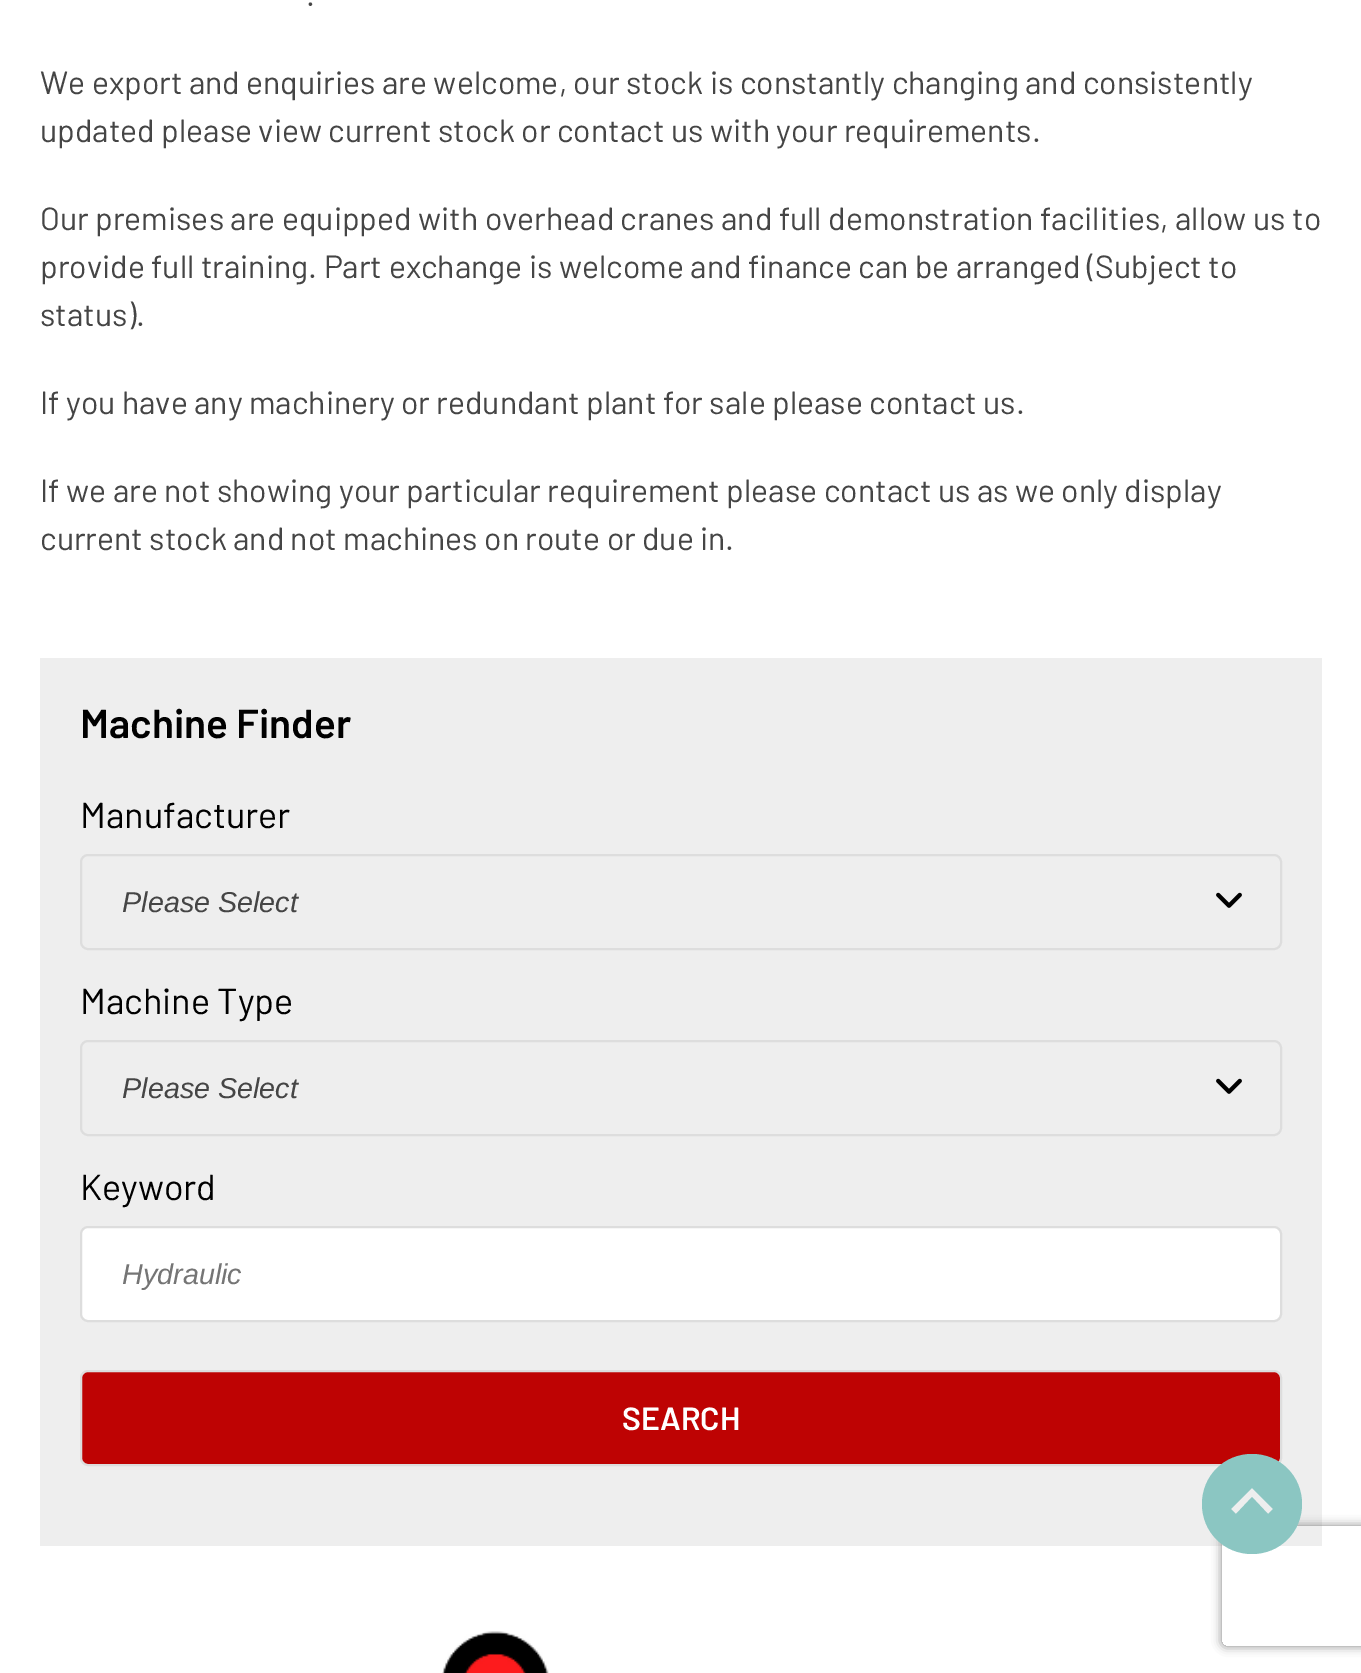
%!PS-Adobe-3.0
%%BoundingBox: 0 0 1361 1673
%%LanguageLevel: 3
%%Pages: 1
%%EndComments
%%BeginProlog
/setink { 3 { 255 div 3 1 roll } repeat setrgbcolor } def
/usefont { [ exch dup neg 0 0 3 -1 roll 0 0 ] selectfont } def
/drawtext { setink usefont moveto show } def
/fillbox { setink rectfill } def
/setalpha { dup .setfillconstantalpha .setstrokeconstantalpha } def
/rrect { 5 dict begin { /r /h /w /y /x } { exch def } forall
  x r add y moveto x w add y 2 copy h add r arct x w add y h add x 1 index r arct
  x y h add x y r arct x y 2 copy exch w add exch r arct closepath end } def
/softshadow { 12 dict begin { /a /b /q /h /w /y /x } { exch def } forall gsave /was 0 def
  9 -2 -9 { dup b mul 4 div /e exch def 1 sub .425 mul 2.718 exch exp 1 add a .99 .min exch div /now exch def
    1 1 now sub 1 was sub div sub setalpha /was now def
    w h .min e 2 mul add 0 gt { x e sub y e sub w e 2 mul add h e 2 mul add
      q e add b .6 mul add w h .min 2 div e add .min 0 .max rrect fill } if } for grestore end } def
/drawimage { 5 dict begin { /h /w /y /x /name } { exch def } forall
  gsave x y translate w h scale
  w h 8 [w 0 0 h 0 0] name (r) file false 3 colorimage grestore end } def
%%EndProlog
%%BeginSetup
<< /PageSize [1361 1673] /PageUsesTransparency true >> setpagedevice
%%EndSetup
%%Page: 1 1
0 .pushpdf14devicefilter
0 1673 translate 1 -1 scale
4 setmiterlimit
0 0 1361 1673 255 255 255 fillbox
(.) 306 6 /Barlow-Regular 32 69 69 69 drawtext
(We export and enquiries are welcome, our stock is constantly changing and consistently) 40 94 /Barlow-Regular 32 69 69 69 drawtext
(updated please view current stock or contact us with your requirements.) 40 142 /Barlow-Regular 32 69 69 69 drawtext
(Our premises are equipped with overhead cranes and full demonstration facilities, allow us to) 40 230 /Barlow-Regular 32 69 69 69 drawtext
(provide full training. Part exchange is welcome and finance can be arranged \(Subject to) 40 278 /Barlow-Regular 32 69 69 69 drawtext
(status\).) 40 326 /Barlow-Regular 32 69 69 69 drawtext
(If you have any machinery or redundant plant for sale please contact us.) 40 414 /Barlow-Regular 32 69 69 69 drawtext
(If we are not showing your particular requirement please contact us as we only display) 40 502 /Barlow-Regular 32 69 69 69 drawtext
(current stock and not machines on route or due in.) 40 550 /Barlow-Regular 32 69 69 69 drawtext
40 658 1282 888 238 238 238 fillbox
(Machine Finder) 80 738 /Barlow-SemiBold 40.5 0 0 0 drawtext
(Manufacturer) 80 828 /Barlow-Regular 36 0 0 0 drawtext
221 221 221 setink
2 setlinewidth
81 855 1200 94 7 rrect stroke
(Please Select) 122 912 /LiberationSans-Italic 28.75 69 69 69 drawtext
(assets/img1.rgb) 1216 892 26 16 drawimage
(Machine Type) 80 1014 /Barlow-Regular 36 0 0 0 drawtext
221 221 221 setink
81 1041 1200 94 7 rrect stroke
(Please Select) 122 1098 /LiberationSans-Italic 28.75 69 69 69 drawtext
(assets/img1.rgb) 1216 1078 26 16 drawimage
(Keyword) 80 1200 /Barlow-Regular 36 0 0 0 drawtext
255 255 255 setink
81 1227 1200 94 7 rrect gsave fill grestore
221 221 221 setink
stroke
(Hydraulic) 122 1284 /LiberationSans-Italic 28.75 117 117 117 drawtext
190 3 3 setink
81 1371 1200 94 7 rrect gsave fill grestore
221 221 221 setink
stroke
(SEARCH) 622 1430 /Barlow-SemiBold 32 255 255 255 drawtext
(assets/img2.rgb) 442 1631 107 42 drawimage
gsave
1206 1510 moveto 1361 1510 lineto 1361 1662 lineto 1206 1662 lineto closepath 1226 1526 moveto 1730 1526 lineto 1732 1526 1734 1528 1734 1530 curveto 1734 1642 lineto 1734 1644 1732 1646 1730 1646 curveto 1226 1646 lineto 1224 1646 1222 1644 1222 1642 curveto 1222 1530 lineto 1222 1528 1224 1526 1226 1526 curveto closepath eoclip newpath
128 128 128 setink
1222 1526 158 120 4 5 1 softshadow
grestore
139 198 194 setink
1252 1454 moveto 1280 1454 1302 1476 1302 1504 curveto 1302 1532 1280 1554 1252 1554 curveto 1224 1554 1202 1532 1202 1504 curveto 1202 1476 1224 1454 1252 1454 curveto closepath 1268 1514 moveto 1252 1497 lineto 1236 1514 lineto 1231 1509 lineto 1252 1488 lineto 1273 1509 lineto closepath eofill
.poppdf14devicefilter showpage
%%EOF
